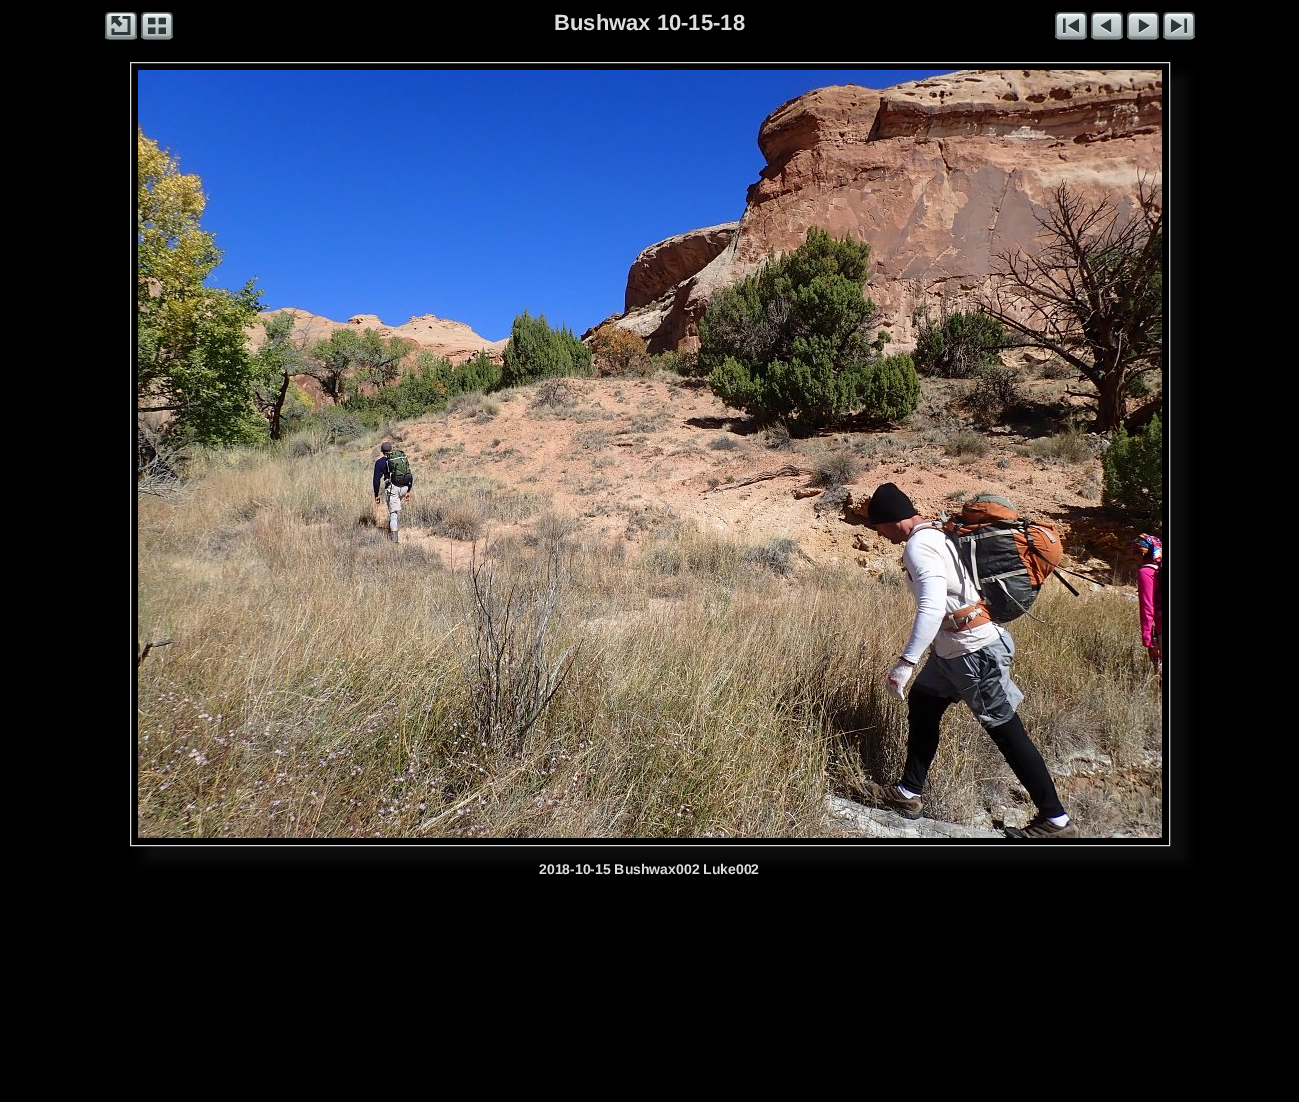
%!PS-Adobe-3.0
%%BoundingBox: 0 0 1299 1102
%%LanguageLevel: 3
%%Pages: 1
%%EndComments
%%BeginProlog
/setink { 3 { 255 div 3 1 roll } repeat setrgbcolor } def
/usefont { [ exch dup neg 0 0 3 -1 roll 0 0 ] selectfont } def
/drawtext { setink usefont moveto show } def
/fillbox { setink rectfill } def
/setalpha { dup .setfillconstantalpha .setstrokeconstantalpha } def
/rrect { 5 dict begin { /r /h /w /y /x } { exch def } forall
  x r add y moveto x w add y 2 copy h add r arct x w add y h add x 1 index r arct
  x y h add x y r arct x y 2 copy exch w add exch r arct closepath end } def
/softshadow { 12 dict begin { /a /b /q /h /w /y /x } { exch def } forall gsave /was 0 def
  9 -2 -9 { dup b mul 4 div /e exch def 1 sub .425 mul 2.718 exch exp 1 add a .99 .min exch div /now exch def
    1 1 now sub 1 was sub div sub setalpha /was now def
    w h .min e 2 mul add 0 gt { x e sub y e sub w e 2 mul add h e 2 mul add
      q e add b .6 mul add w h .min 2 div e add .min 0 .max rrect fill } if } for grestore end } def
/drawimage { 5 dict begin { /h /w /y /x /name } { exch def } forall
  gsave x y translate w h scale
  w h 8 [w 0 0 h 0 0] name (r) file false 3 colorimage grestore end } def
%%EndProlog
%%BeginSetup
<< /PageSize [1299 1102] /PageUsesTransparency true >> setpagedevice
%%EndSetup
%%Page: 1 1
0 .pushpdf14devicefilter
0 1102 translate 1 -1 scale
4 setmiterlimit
0 0 1299 1102 0 0 0 fillbox
(assets/img1.rgb) 105 12 32 28 drawimage
(assets/img2.rgb) 141 12 32 28 drawimage
(Bushwax 10-15-18) 554 30 /LiberationSans-Bold 22 221 221 221 drawtext
(assets/img3.rgb) 1055 12 32 28 drawimage
(assets/img4.rgb) 1091 12 32 28 drawimage
(assets/img5.rgb) 1127 12 32 28 drawimage
(assets/img6.rgb) 1163 12 32 28 drawimage
gsave
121 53 moveto 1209 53 lineto 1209 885 lineto 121 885 lineto closepath 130 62 moveto 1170 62 lineto 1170 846 lineto 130 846 lineto closepath eoclip newpath
51 51 51 setink
145 77 1040 784 0 7.5 0.3 softshadow
grestore
130.5 62.5 1039 783 rectstroke
(assets/img7.rgb) 138 70 1024 768 drawimage
(2018-10-15 Bushwax002 Luke002) 539 874 /LiberationSans-Bold 14 221 221 221 drawtext
.poppdf14devicefilter showpage
%%EOF
